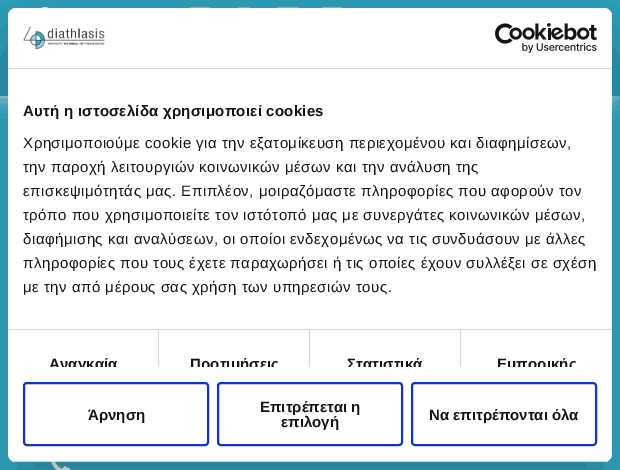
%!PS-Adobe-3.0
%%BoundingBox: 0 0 620 470
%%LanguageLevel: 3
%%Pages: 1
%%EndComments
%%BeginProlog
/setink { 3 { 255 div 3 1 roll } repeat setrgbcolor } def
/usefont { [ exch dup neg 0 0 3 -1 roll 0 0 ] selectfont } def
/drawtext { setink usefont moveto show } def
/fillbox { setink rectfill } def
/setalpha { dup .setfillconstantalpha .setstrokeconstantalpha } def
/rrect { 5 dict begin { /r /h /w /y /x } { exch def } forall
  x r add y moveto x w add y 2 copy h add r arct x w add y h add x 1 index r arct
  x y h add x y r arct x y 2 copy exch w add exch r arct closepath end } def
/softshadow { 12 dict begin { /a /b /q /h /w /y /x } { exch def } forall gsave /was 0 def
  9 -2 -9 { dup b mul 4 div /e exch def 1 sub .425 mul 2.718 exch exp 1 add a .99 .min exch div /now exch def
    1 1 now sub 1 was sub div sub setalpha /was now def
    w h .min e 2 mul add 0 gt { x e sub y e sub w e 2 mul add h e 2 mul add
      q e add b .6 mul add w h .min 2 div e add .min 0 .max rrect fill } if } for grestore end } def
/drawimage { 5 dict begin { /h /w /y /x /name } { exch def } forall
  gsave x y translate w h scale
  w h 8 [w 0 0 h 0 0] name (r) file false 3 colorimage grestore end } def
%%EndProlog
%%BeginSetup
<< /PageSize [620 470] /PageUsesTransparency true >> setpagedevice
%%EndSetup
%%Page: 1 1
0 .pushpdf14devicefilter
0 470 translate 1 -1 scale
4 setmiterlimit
0 0 620 470 255 255 255 fillbox
53 177 207 setink
217 -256 moveto 300 -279 388 -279 471 -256 curveto 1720 90 lineto 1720 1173 lineto -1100 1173 lineto -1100 110 lineto closepath fill
(assets/img1.rgb) 51 462 19 8 drawimage
255 255 255 setink
-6 0 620 96 0 10 1 softshadow
0 0 620 96 45 160 187 fillbox
(assets/img2.rgb) 41 7 8 1 drawimage
(assets/img3.rgb) 189 7 22 1 drawimage
(assets/img4.rgb) 237 7 14 1 drawimage
(assets/img5.rgb) 277 7 22 1 drawimage
(assets/img3.rgb) 321 7 22 1 drawimage
0 0 0 setink
8 40 604 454 8 34 0.3 softshadow
255 255 255 setink
8 8 604 454 8 rrect fill
8 68 604 1 214 214 214 fillbox
(assets/img6.rgb) 23 27 82 22 drawimage
(assets/img7.rgb) 495 23 102 30 drawimage
8 329 604 1 214 214 214 fillbox
/LiberationSans-Bold 15 usefont
20 20 20 setink
23 116 moveto 0.25 0 (Αυτή η ιστοσελίδα χρησιμοποιεί cookies) ashow
/LiberationSans-Regular 15 usefont
23 148 moveto 0.5 0 (Χρησιμοποιούμε cookie για την εξατομίκευση περιεχομένου και διαφημίσεων,) ashow
23 172 moveto 0.5 0 (την παροχή λειτουργιών κοινωνικών μέσων και την ανάλυση της) ashow
23 196 moveto 0.5 0 (επισκεψιμότητάς μας. Επιπλέον, μοιραζόμαστε πληροφορίες που αφορούν τον) ashow
23 220 moveto 0.5 0 (τρόπο που χρησιμοποιείτε τον ιστότοπό μας με συνεργάτες κοινωνικών μέσων,) ashow
23 244 moveto 0.5 0 (διαφήμισης και αναλύσεων, οι οποίοι ενδεχομένως να τις συνδυάσουν με άλλες) ashow
23 268 moveto 0.5 0 (πληροφορίες που τους έχετε παραχωρήσει ή τις οποίες έχουν συλλέξει σε σχέση) ashow
23 292 moveto 0.5 0 (με την από μέρους σας χρήση των υπηρεσιών τους.) ashow
158 330 1 37 214 214 214 fillbox
gsave
8 69 604 298 rectclip
/LiberationSans-Bold 15 usefont
20 20 20 setink
49 369 moveto 0.1 0 (Αναγκαία) ashow
grestore
309 330 1 37 214 214 214 fillbox
gsave
8 69 604 298 rectclip
/LiberationSans-Bold 15 usefont
20 20 20 setink
190 369 moveto 0.1 0 (Προτιμήσεις) ashow
grestore
460 330 1 37 214 214 214 fillbox
gsave
8 69 604 298 rectclip
/LiberationSans-Bold 15 usefont
20 20 20 setink
347 369 moveto 0.1 0 (Στατιστικά) ashow
497 369 moveto 0.1 0 (Εμπορικής) ashow
grestore
gsave
8 8 604 454 8 rrect clip newpath
8 461 604 1 214 214 214 fillbox
grestore
16 50 207 setink
2 setlinewidth
24 383 184 62 3 rrect stroke
(Άρνηση) 88 420 /LiberationSans-Bold 15 20 20 20 drawtext
16 50 207 setink
218 383 184 62 3 rrect stroke
(Επιτρέπεται η) 260 412 /LiberationSans-Bold 15 20 20 20 drawtext
(επιλογή) 281 427 /LiberationSans-Bold 15 20 20 20 drawtext
16 50 207 setink
412 383 184 62 3 rrect stroke
(Να επιτρέπονται όλα) 429 420 /LiberationSans-Bold 15 20 20 20 drawtext
.poppdf14devicefilter showpage
%%EOF
